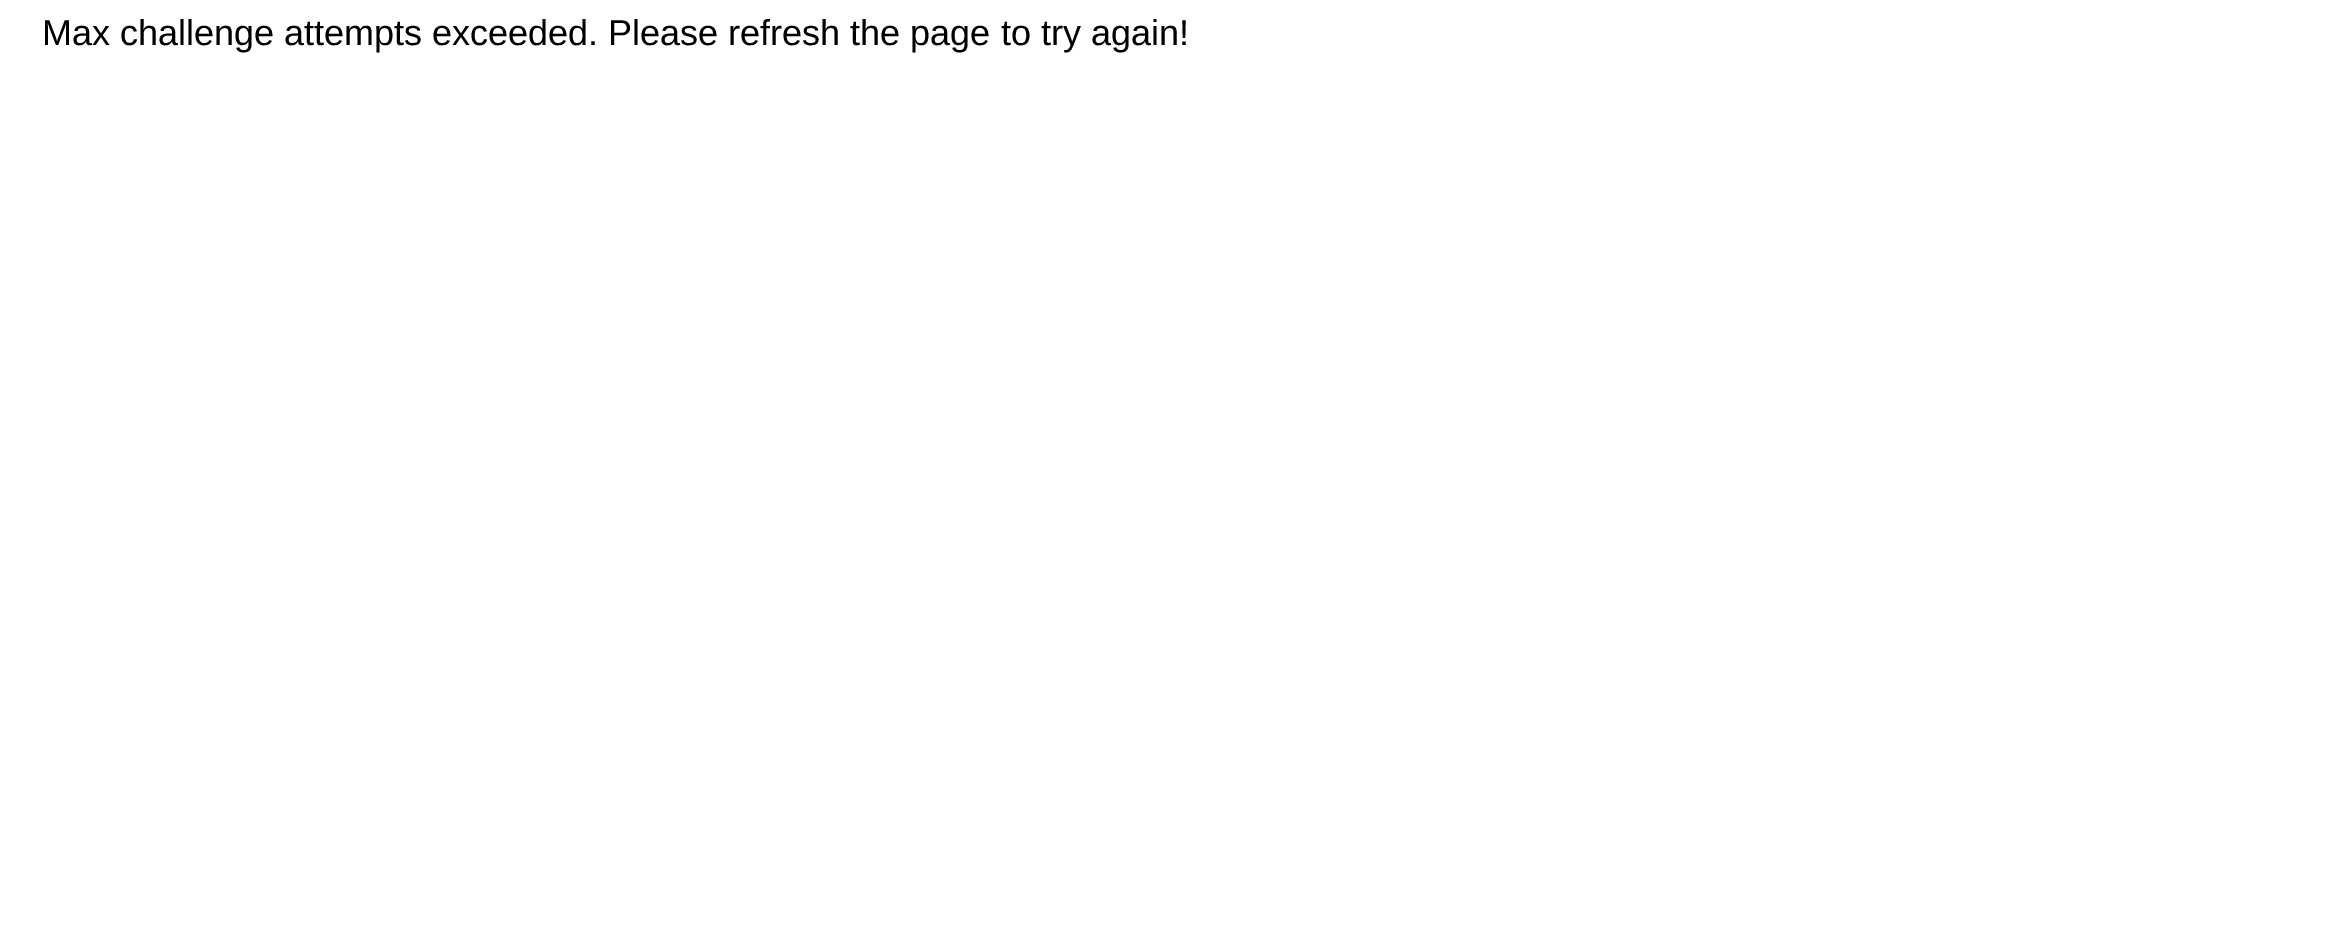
%!PS-Adobe-3.0
%%BoundingBox: 0 0 2339 930
%%LanguageLevel: 3
%%Pages: 1
%%EndComments
%%BeginProlog
/setink { 3 { 255 div 3 1 roll } repeat setrgbcolor } def
/usefont { [ exch dup neg 0 0 3 -1 roll 0 0 ] selectfont } def
/drawtext { setink usefont moveto show } def
/fillbox { setink rectfill } def
%%EndProlog
%%BeginSetup
<< /PageSize [2339 930] >> setpagedevice
%%EndSetup
%%Page: 1 1
0 930 translate 1 -1 scale
4 setmiterlimit
0 0 2339 930 255 255 255 fillbox
(Max challenge attempts exceeded. Please refresh the page to try again!) 42 45 /LiberationSans-Regular 36 0 0 0 drawtext
showpage
%%EOF
